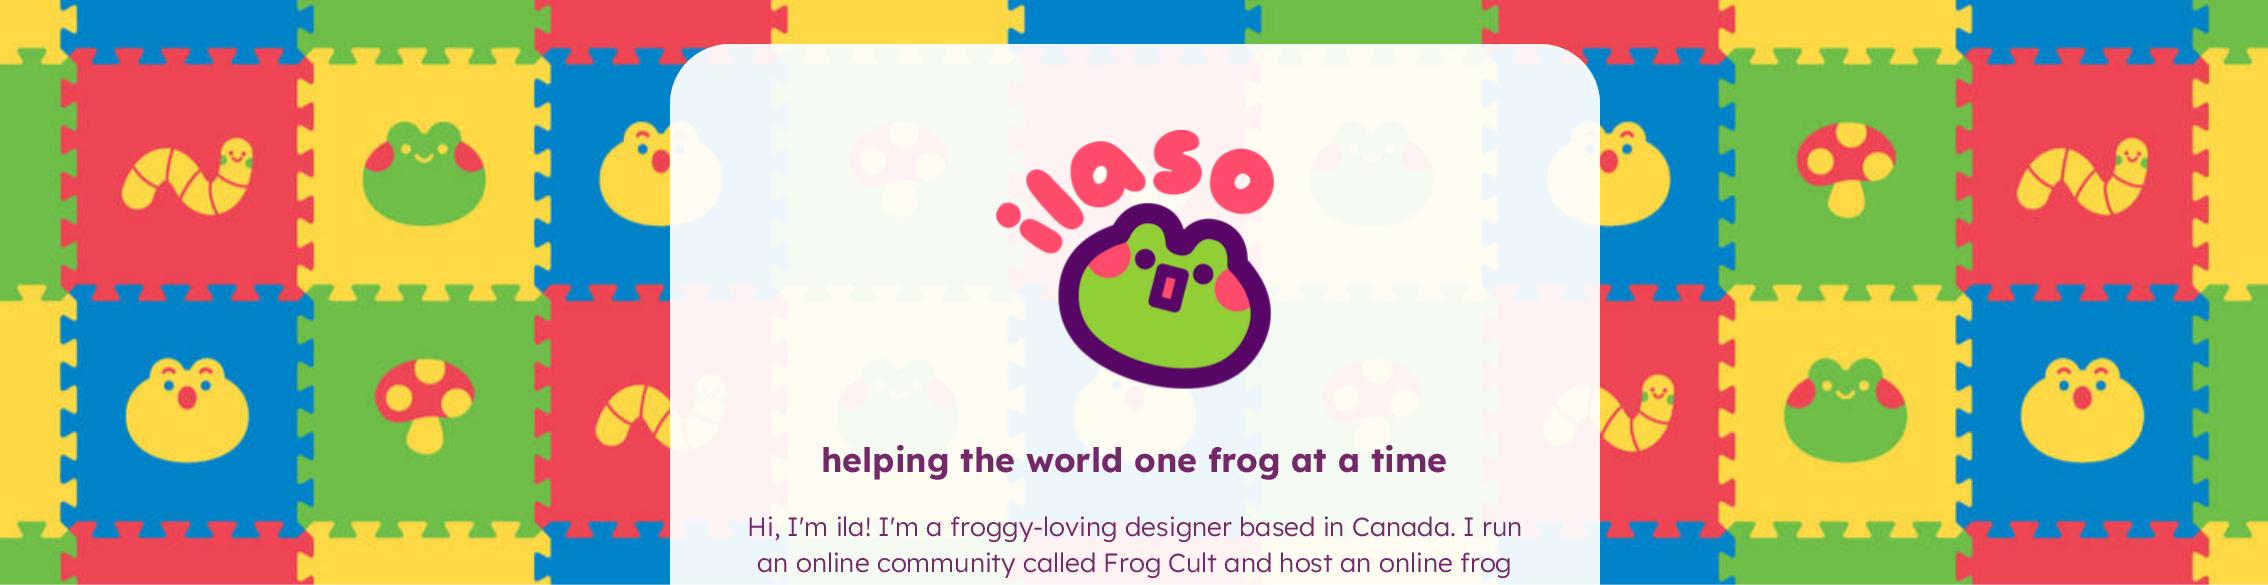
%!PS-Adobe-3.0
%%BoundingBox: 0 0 2268 585
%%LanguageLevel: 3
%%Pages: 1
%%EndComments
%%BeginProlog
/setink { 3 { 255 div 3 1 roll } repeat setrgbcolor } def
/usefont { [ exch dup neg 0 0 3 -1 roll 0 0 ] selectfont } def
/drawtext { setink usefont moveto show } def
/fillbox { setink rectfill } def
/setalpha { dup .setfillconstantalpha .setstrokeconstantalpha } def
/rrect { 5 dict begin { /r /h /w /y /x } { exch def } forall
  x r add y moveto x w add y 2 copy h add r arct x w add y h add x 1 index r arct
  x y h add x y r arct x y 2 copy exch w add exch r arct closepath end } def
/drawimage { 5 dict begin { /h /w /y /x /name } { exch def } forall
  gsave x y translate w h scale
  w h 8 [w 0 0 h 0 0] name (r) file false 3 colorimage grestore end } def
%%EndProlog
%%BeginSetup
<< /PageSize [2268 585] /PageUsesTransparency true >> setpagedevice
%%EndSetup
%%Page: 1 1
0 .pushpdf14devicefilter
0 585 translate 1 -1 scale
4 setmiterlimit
0 0 2268 585 255 255 255 fillbox
(assets/img1.rgb) 0 0 2268 585 drawimage
0.93 setalpha
670 44 930 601 60 rrect fill
1 setalpha
(assets/img2.rgb) 996 130 278 259 drawimage
(helping the world one frog at a time) 821 472 /LexendDeca-Bold 33.75 115 40 104 drawtext
(Hi, I'm ila! I'm a froggy-loving designer based in Canada. I run) 747 536 /LexendDeca-Light 26.25 115 40 104 drawtext
(an online community called Frog Cult and host an online frog) 757 572 /LexendDeca-Light 26.25 115 40 104 drawtext
.poppdf14devicefilter showpage
%%EOF
